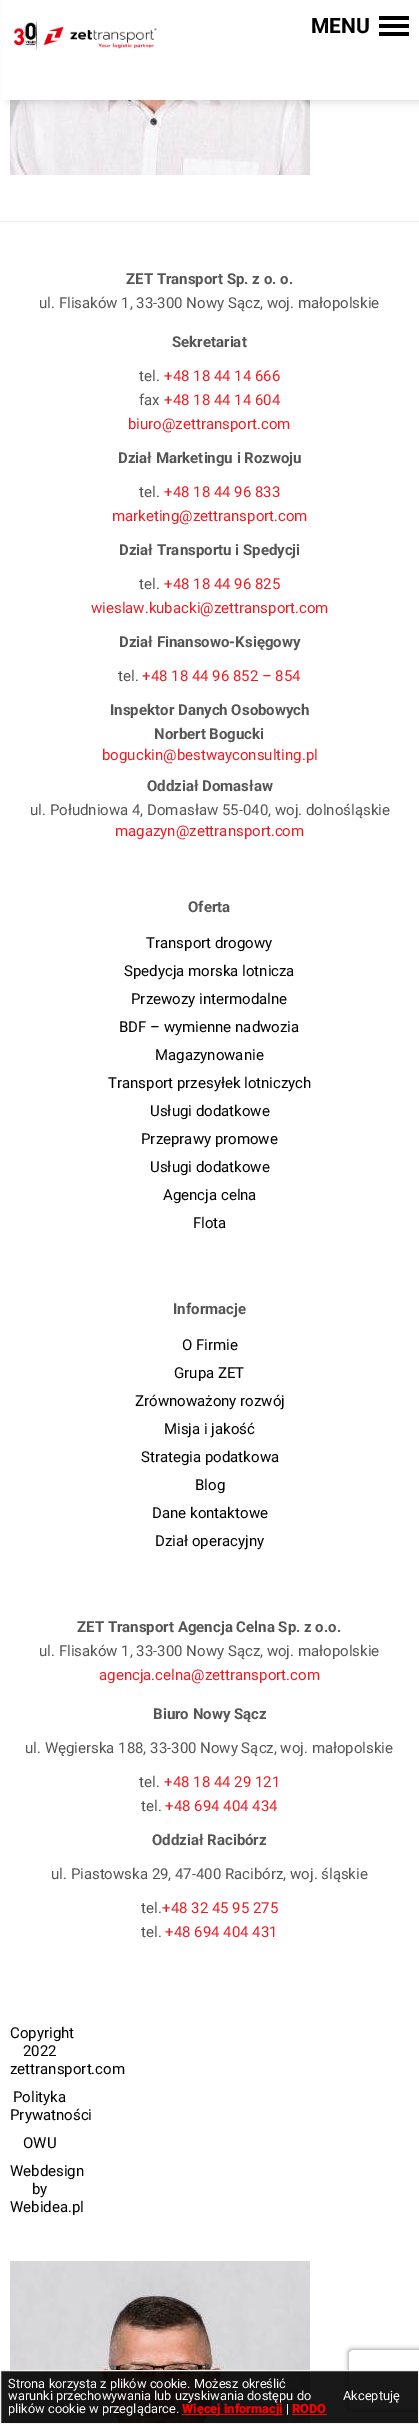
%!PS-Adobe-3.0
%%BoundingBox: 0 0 419 2424
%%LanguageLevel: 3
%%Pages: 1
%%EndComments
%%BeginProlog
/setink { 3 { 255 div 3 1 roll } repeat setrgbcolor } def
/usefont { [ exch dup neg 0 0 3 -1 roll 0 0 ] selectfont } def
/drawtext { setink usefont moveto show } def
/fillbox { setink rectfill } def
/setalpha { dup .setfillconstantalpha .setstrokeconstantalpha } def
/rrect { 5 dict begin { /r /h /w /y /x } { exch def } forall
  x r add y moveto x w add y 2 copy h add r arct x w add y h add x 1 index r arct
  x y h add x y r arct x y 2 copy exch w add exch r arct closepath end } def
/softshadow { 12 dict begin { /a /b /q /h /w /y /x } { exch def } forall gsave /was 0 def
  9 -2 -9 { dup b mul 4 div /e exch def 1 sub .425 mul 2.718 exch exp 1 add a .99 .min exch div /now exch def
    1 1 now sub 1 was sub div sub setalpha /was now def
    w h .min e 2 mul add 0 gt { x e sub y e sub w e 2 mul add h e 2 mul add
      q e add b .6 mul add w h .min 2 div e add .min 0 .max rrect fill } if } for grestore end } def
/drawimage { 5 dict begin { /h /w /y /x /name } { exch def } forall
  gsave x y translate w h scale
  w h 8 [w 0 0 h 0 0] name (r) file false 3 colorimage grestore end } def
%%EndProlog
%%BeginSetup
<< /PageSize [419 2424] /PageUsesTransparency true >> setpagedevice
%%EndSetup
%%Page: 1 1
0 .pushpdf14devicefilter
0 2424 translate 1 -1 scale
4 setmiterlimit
0 0 419 2424 255 255 255 fillbox
(assets/img2.rgb) 10 100 300 75 drawimage
0 0 0 setink
10 0 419 100 0 5 0.2 softshadow
2 0 417 100 255 255 255 fillbox
(assets/img1.rgb) 14 20 143 31 drawimage
(MENU) 311 33 /Roboto-Bold 21 0 0 0 drawtext
379 16 30 4 0 0 0 fillbox
379 24 30 4 0 0 0 fillbox
379 32 30 4 0 0 0 fillbox
0 221 419 1 237 237 237 fillbox
(ZET Transport Sp. z o. o.) 126 284 /Roboto-Bold 15 85 85 85 drawtext
(ul. Flisaków 1, 33-300 Nowy Sącz, woj. małopolskie) 39 308 /Roboto-Regular 15 85 85 85 drawtext
(Sekretariat) 172 347 /Roboto-Bold 15 85 85 85 drawtext
(tel.) 139 381 /Roboto-Regular 15 85 85 85 drawtext
(+48 18 44 14 666) 164 381 /Roboto-Regular 15 236 28 35 drawtext
(fax) 139 405 /Roboto-Regular 15 85 85 85 drawtext
(+48 18 44 14 604) 164 405 /Roboto-Regular 15 236 28 35 drawtext
(biuro@zettransport.com) 128 429 /Roboto-Regular 15 236 28 35 drawtext
(Dział Marketingu i Rozwoju) 118 463 /Roboto-Bold 15 85 85 85 drawtext
(tel.) 139 497 /Roboto-Regular 15 85 85 85 drawtext
(+48 18 44 96 833) 164 497 /Roboto-Regular 15 236 28 35 drawtext
(marketing@zettransport.com) 112 521 /Roboto-Regular 15 236 28 35 drawtext
(Dział Transportu i Spedycji) 119 555 /Roboto-Bold 15 85 85 85 drawtext
(tel.) 139 589 /Roboto-Regular 15 85 85 85 drawtext
(+48 18 44 96 825) 164 589 /Roboto-Regular 15 236 28 35 drawtext
(wieslaw.kubacki@zettransport.com) 91 613 /Roboto-Regular 15 236 28 35 drawtext
(Dział Finansowo-Księgowy) 119 647 /Roboto-Bold 15 85 85 85 drawtext
(tel.) 118 681 /Roboto-Regular 15 85 85 85 drawtext
(+48 18 44 96 852 – 854) 142 681 /Roboto-Regular 15 236 28 35 drawtext
(Inspektor Danych Osobowych) 110 715 /Roboto-Bold 15 85 85 85 drawtext
(Norbert Bogucki) 154 739 /Roboto-Bold 15 85 85 85 drawtext
(boguckin@bestwayconsulting.pl) 102 760 /Roboto-Regular 15 236 28 35 drawtext
(Oddział Domasław) 147 791 /Roboto-Bold 15 85 85 85 drawtext
(ul. Południowa 4, Domasław 55-040, woj. dolnośląskie) 30 815 /Roboto-Regular 15 85 85 85 drawtext
(magazyn@zettransport.com) 115 836 /Roboto-Regular 15 236 28 35 drawtext
(Oferta) 188 912 /Roboto-Bold 15 85 85 85 drawtext
(Transport drogowy) 146 948 /Roboto-Regular 15 0 0 0 drawtext
(Spedycja morska lotnicza) 124 976 /Roboto-Regular 15 0 0 0 drawtext
(Przewozy intermodalne) 131 1004 /Roboto-Regular 15 0 0 0 drawtext
(BDF – wymienne nadwozia) 119 1032 /Roboto-Regular 15 0 0 0 drawtext
(Magazynowanie) 155 1060 /Roboto-Regular 15 0 0 0 drawtext
(Transport przesyłek lotniczych) 108 1088 /Roboto-Regular 15 0 0 0 drawtext
(Usługi dodatkowe) 150 1116 /Roboto-Regular 15 0 0 0 drawtext
(Przeprawy promowe) 141 1144 /Roboto-Regular 15 0 0 0 drawtext
(Usługi dodatkowe) 150 1172 /Roboto-Regular 15 0 0 0 drawtext
(Agencja celna) 163 1200 /Roboto-Regular 15 0 0 0 drawtext
(Flota) 193 1228 /Roboto-Regular 15 0 0 0 drawtext
(Informacje) 173 1314 /Roboto-Bold 15 85 85 85 drawtext
(O Firmie) 182 1350 /Roboto-Regular 15 0 0 0 drawtext
(Grupa ZET) 174 1378 /Roboto-Regular 15 0 0 0 drawtext
(Zrównoważony rozwój) 135 1406 /Roboto-Regular 15 0 0 0 drawtext
(Misja i jakość) 164 1434 /Roboto-Regular 15 0 0 0 drawtext
(Strategia podatkowa) 141 1462 /Roboto-Regular 15 0 0 0 drawtext
(Blog) 195 1490 /Roboto-Regular 15 0 0 0 drawtext
(Dane kontaktowe) 152 1518 /Roboto-Regular 15 0 0 0 drawtext
(Dział operacyjny) 155 1546 /Roboto-Regular 15 0 0 0 drawtext
(ZET Transport Agencja Celna Sp. z o.o.) 77 1632 /Roboto-Bold 15 85 85 85 drawtext
(ul. Flisaków 1, 33-300 Nowy Sącz, woj. małopolskie) 39 1656 /Roboto-Regular 15 85 85 85 drawtext
(agencja.celna@zettransport.com) 99 1680 /Roboto-Regular 15 236 28 35 drawtext
(Biuro Nowy Sącz) 153 1719 /Roboto-Bold 15 85 85 85 drawtext
(ul. Węgierska 188, 33-300 Nowy Sącz, woj. małopolskie) 25 1753 /Roboto-Regular 15 85 85 85 drawtext
(tel.) 139 1787 /Roboto-Regular 15 85 85 85 drawtext
(+48 18 44 29 121) 164 1787 /Roboto-Regular 15 236 28 35 drawtext
(tel.) 141 1811 /Roboto-Regular 15 85 85 85 drawtext
(+48 694 404 434) 165 1811 /Roboto-Regular 15 236 28 35 drawtext
(Oddział Racibórz) 152 1845 /Roboto-Bold 15 85 85 85 drawtext
(ul. Piastowska 29, 47-400 Racibórz, woj. śląskie) 51 1879 /Roboto-Regular 15 85 85 85 drawtext
(tel.) 141 1913 /Roboto-Regular 15 85 85 85 drawtext
(+48 32 45 95 275) 162 1913 /Roboto-Regular 15 236 28 35 drawtext
(tel.) 141 1937 /Roboto-Regular 15 85 85 85 drawtext
(+48 694 404 431) 165 1937 /Roboto-Regular 15 236 28 35 drawtext
(Copyright) 10 2038 /Roboto-Regular 15 0 0 0 drawtext
(2022) 23 2056 /Roboto-Regular 15 0 0 0 drawtext
(zettransport.com) 10 2074 /Roboto-Regular 15 0 0 0 drawtext
(Polityka) 13 2102 /Roboto-Regular 15 0 0 0 drawtext
(Prywatności) 10 2120 /Roboto-Regular 15 0 0 0 drawtext
(OWU) 23 2148 /Roboto-Regular 15 0 0 0 drawtext
(Webdesign) 10 2176 /Roboto-Regular 15 0 0 0 drawtext
(by) 32 2194 /Roboto-Regular 15 0 0 0 drawtext
(Webidea.pl) 10 2212 /Roboto-Regular 15 0 0 0 drawtext
(assets/img3.rgb) 10 2261 300 162 drawimage
gsave
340 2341 moveto 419 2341 lineto 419 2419 lineto 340 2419 lineto closepath 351 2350 moveto 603 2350 lineto 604 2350 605 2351 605 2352 curveto 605 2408 lineto 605 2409 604 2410 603 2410 curveto 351 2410 lineto 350 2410 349 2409 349 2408 curveto 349 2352 lineto 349 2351 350 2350 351 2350 curveto closepath eoclip newpath
128 128 128 setink
349 2350 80 60 2 2.5 1 softshadow
grestore
0.9 setalpha
0.5 2370.5 moveto 418.5 2370.5 lineto 418.5 2423.5 lineto 0.5 2423.5 lineto closepath fill
1 setalpha
243 243 243 setink
0.5 2370.5 moveto 418.5 2370.5 lineto 418.5 2423.5 lineto 0.5 2423.5 lineto closepath stroke
(Strona korzysta z plików cookie. Możesz określić) 8 2388 /Roboto-Regular 12.8 255 255 255 drawtext
(warunki przechowywania lub uzyskiwania dostępu do) 8 2400 /Roboto-Regular 12.8 255 255 255 drawtext
(plików cookie w przeglądarce.) 8 2413 /Roboto-Regular 12.8 255 255 255 drawtext
182 2414 101 1 255 0 0 fillbox
(Więcej informacji) 182 2413 /Roboto-Black 12.8 255 0 0 drawtext
(|) 286 2413 /Roboto-Regular 12.8 255 255 255 drawtext
(RODO) 292 2413 /Roboto-Black 12.8 255 0 0 drawtext
292 2414 35 1 255 0 0 fillbox
(Akceptuję) 343 2400 /Roboto-Regular 12.8 255 255 255 drawtext
.poppdf14devicefilter showpage
%%EOF
